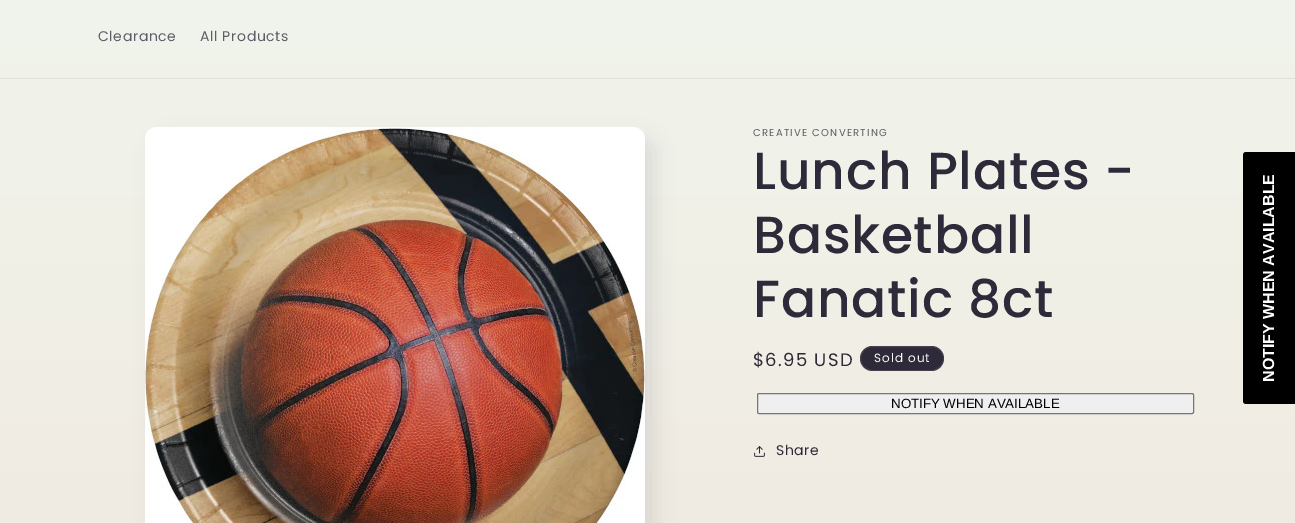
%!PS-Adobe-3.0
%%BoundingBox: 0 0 1295 523
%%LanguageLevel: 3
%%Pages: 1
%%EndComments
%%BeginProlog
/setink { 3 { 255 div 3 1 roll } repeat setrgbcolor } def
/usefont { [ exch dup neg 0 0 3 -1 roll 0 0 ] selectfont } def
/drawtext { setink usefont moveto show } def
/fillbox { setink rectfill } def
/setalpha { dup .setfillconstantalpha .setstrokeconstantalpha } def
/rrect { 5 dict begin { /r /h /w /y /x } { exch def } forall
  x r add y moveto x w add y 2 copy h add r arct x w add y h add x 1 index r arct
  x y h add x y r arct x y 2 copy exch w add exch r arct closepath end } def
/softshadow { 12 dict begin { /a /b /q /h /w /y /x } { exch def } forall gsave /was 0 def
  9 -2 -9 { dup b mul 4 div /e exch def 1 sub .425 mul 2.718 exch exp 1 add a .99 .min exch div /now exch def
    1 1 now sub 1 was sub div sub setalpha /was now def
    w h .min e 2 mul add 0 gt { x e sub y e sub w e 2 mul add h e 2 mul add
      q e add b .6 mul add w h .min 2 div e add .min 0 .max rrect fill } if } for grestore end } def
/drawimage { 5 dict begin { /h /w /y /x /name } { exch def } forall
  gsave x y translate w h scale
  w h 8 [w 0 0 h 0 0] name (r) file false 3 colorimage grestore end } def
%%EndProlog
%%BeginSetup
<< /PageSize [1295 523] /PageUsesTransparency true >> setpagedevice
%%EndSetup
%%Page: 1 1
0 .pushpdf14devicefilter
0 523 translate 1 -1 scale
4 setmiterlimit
0 0 1295 523 255 255 255 fillbox
gsave 0 0 moveto 1295 0 lineto 1295 523 lineto 0 523 lineto closepath clip newpath
<< /ShadingType 2 /ColorSpace /DeviceRGB /Coords [648 0 648 523] /Extend [true true] /Function << /FunctionType 2 /Domain [0 1] /C0 [0.941 0.957 0.925] /C1 [0.945 0.922 0.886] /N 1 >> >> shfill grestore
0 78 1295 1 224 227 220 fillbox
/Poppins-Regular 14 usefont
95 92 101 setink
98 41 moveto 0.6 0 (Clearance) ashow
200 41 moveto 0.6 0 (All Products) ashow
46 42 57 setink
155 139 500 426 12 10 0.1 softshadow
(assets/img1.rgb) 145 127 500 396 drawimage
/Poppins-Regular 10 usefont
95 92 101 setink
753 136 moveto 1.25 0 (CREATIVE CONVERTING) ashow
/Poppins-Medium 52 usefont
46 42 57 setink
753 189 moveto 0.75 0 (Lunch Plates -) ashow
753 253 moveto 0.75 0 (Basketball) ashow
753 317 moveto 0.75 0 (Fanatic 8ct) ashow
/Poppins-Regular 18 usefont
753 366 moveto 1.25 0 ($6.95 USD) ashow
860 346 84 25 12.5 rrect fill
0.1 setalpha
253 251 247 setink
860.5 346.5 83 24 12 rrect stroke
/Poppins-Regular 12 usefont
1 setalpha
874 362 moveto 1 0 (Sold out) ashow
239 239 239 setink
757.5 393.5 436 20 1.5 rrect gsave fill grestore
118 118 118 setink
stroke
(NOTIFY WHEN AVAILABLE) 891 408 /LiberationSans-Regular 13.3 0 0 0 drawtext
(assets/img2.rgb) 754 446 11 11 drawimage
/Poppins-Regular 14 usefont
46 42 57 setink
776 455 moveto 0.6 0 (Share) ashow
0 0 0 setink
1244 401 moveto 1244 155 lineto 1244 154 1245 153 1246 153 curveto 1295 153 lineto 1295 403 lineto 1246 403 lineto 1245 403 1244 402 1244 401 curveto closepath fill
1243 401 moveto 1243 155 lineto 1243 154 1244 152 1246 152 curveto 1295 152 lineto 1295 404 lineto 1246 404 lineto 1244 404 1243 402 1243 401 curveto closepath 1244 401 moveto 1244 155 lineto 1244 154 1245 153 1246 153 curveto 1295 153 lineto 1295 403 lineto 1246 403 lineto 1245 403 1244 402 1244 401 curveto closepath eofill
/LiberationSans-Bold 16 usefont
255 255 255 setink
gsave 1274 382 translate -90 rotate 0 0 moveto (NOTIFY WHEN AVAILABLE) show grestore
.poppdf14devicefilter showpage
%%EOF
